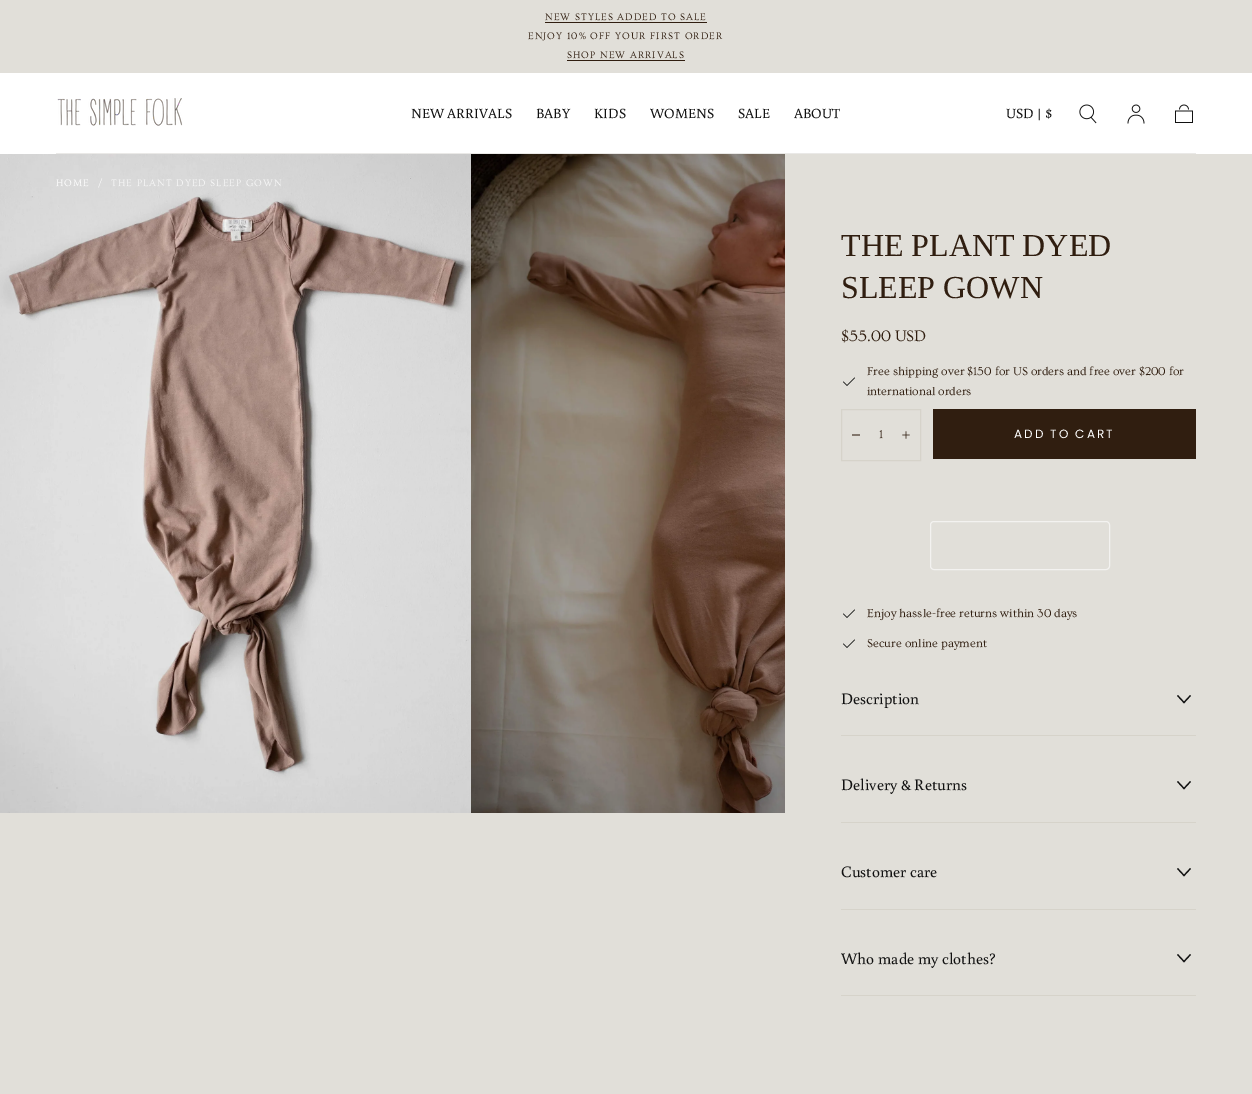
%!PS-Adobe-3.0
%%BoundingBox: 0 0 1252 1094
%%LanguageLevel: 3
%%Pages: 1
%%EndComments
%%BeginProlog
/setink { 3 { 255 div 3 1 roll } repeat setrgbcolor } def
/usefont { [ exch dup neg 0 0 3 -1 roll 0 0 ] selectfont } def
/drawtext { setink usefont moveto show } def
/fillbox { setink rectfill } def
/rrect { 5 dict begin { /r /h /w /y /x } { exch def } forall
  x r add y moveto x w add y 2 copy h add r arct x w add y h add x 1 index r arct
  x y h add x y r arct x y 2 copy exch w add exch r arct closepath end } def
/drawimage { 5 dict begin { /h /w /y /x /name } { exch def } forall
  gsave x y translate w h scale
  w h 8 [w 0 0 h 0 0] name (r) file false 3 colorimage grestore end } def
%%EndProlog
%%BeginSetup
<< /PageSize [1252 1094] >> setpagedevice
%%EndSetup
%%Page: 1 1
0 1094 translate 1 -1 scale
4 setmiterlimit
0 0 1252 1094 225 223 217 fillbox
/Ovo-Regular 10 usefont
48 30 16 setink
545 20 moveto 1 0 (NEW STYLES ADDED TO SALE) ashow
545 22 162 1 48 30 16 fillbox
528 39 moveto 1 0 (ENJOY 10% OFF YOUR FIRST ORDER) ashow
567 58 moveto 1 0 (SHOP NEW ARRIVALS) ashow
567 60 118 1 48 30 16 fillbox
0 73 1252 81 255 255 255 fillbox
(assets/img1.rgb) 57 98 126 28 drawimage
(NEW ARRIVALS) 411 118 /Buenard-Regular 14 17 17 17 drawtext
(BABY) 536 118 /Buenard-Regular 14 17 17 17 drawtext
(KIDS) 594 118 /Buenard-Regular 14 17 17 17 drawtext
(WOMENS) 650 118 /Buenard-Regular 14 17 17 17 drawtext
(SALE) 738 118 /Buenard-Regular 14 17 17 17 drawtext
(ABOUT) 794 118 /Buenard-Regular 14 17 17 17 drawtext
(USD | $) 1006 118 /Buenard-Regular 14 17 17 17 drawtext
(assets/img2.rgb) 1079 104 18 20 drawimage
(assets/img3.rgb) 1127 104 18 20 drawimage
(assets/img4.rgb) 1175 104 18 19 drawimage
56 153 1140 1 234 233 231 fillbox
(assets/img5.rgb) 0 154 471 659 drawimage
(assets/img6.rgb) 471 154 314 659 drawimage
56 787 2 2 198 198 198 fillbox
/Ovo-Regular 10 usefont
255 255 255 setink
56 186 moveto 1 0 (HOME) ashow
98 186 moveto 1 0 (/) ashow
247 247 247 setink
111 186 moveto 1 0 (THE PLANT DYED SLEEP GOWN) ashow
(THE PLANT DYED) 841 256 /LiberationSerif-Regular 32 48 30 16 drawtext
(SLEEP GOWN) 841 298 /LiberationSerif-Regular 32 48 30 16 drawtext
($55.00 USD) 841 341 /Ovo-Regular 16 48 30 16 drawtext
(Free shipping over $150 for US orders and free over $200 for) 867 375 /Ovo-Regular 12 48 30 16 drawtext
17 17 17 setink
0.7 setlinewidth
2 setlinecap
854.5 378 moveto 847 385.5 lineto 843.5 382 lineto stroke
(international orders) 867 395 /Ovo-Regular 12 48 30 16 drawtext
214 211 202 setink
1 setlinewidth
0 setlinecap
841.5 409.5 79 51 rectstroke
48 30 16 setink
0.8 setlinewidth
2 setlinecap
852.5 435 moveto 859.5 435 lineto stroke
(1) 879 438 /Ovo-Regular 12 48 30 16 drawtext
(assets/img7.rgb) 902 431 8 8 drawimage
933 409 263 50 48 30 16 fillbox
/Poppins-Regular 12 usefont
255 255 255 setink
1014 438 moveto 2 0 (ADD TO CART) ashow
243 242 240 setink
1 setlinewidth
0 setlinecap
930.5 521.5 179 48 3.5 rrect stroke
17 17 17 setink
0.7 setlinewidth
2 setlinecap
854.5 610 moveto 847 617.5 lineto 843.5 614 lineto 854.5 640 moveto 847 647.5 lineto 843.5 644 lineto stroke
(Enjoy hassle-free returns within 30 days) 867 617 /Ovo-Regular 12 48 30 16 drawtext
(Secure online payment) 867 647 /Ovo-Regular 12 48 30 16 drawtext
841 735 355 1 214 211 202 fillbox
(Description) 841 704 /Buenard-Regular 16 17 17 17 drawtext
1.2 setlinewidth
0 setlinecap
1190.5 695.5 moveto 1184 702.5 lineto 1177.5 695.5 lineto stroke
841 822 355 1 214 211 202 fillbox
(Delivery & Returns) 841 790 /Buenard-Regular 16 17 17 17 drawtext
1190.5 781.5 moveto 1184 788.5 lineto 1177.5 781.5 lineto stroke
841 909 355 1 214 211 202 fillbox
(Customer care) 841 877 /Buenard-Regular 16 17 17 17 drawtext
1190.5 868.5 moveto 1184 875.5 lineto 1177.5 868.5 lineto stroke
841 995 355 1 214 211 202 fillbox
(Who made my clothes?) 841 964 /Buenard-Regular 16 17 17 17 drawtext
1190.5 954.5 moveto 1184 961.5 lineto 1177.5 954.5 lineto stroke
showpage
%%EOF
